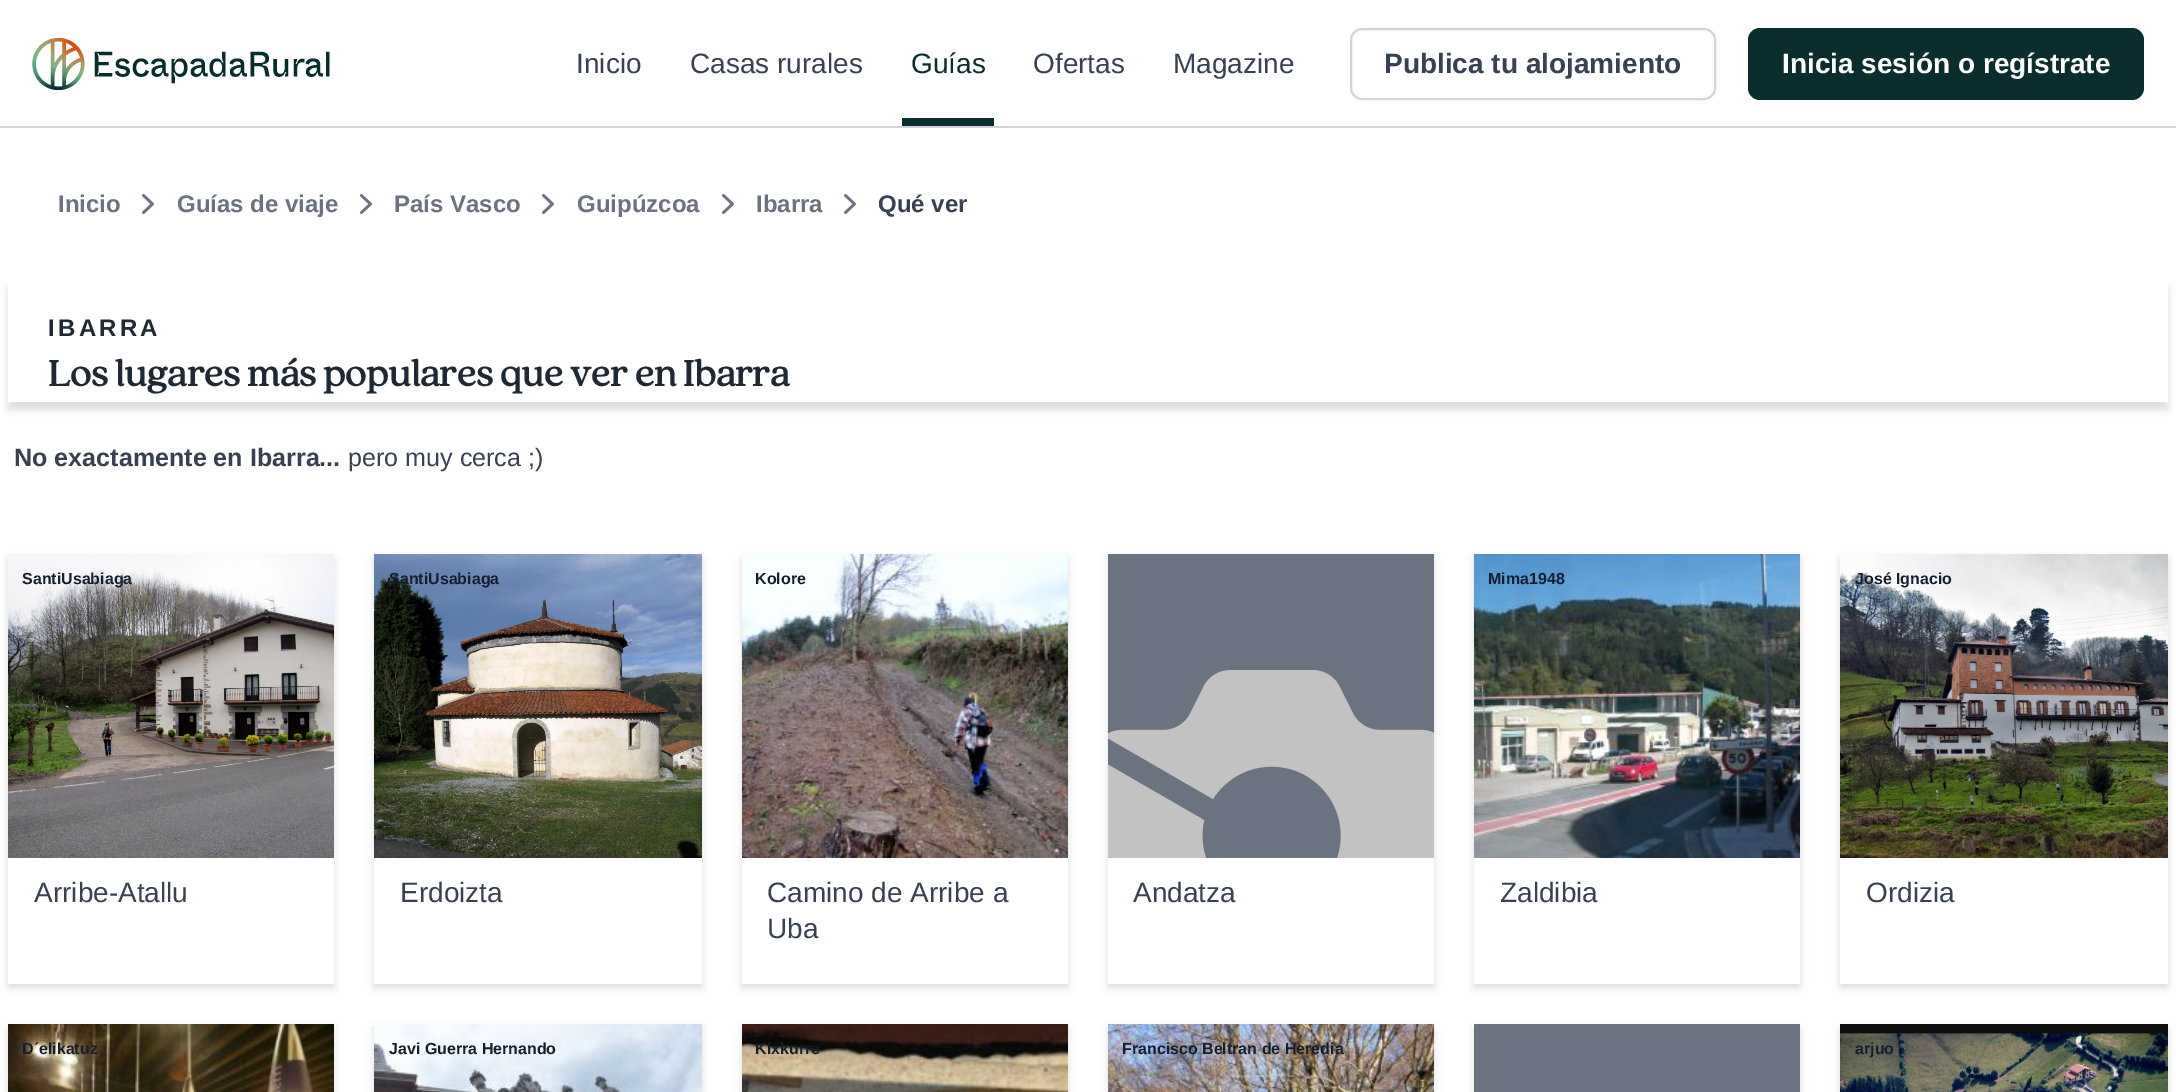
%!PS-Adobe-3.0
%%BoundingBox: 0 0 2176 1092
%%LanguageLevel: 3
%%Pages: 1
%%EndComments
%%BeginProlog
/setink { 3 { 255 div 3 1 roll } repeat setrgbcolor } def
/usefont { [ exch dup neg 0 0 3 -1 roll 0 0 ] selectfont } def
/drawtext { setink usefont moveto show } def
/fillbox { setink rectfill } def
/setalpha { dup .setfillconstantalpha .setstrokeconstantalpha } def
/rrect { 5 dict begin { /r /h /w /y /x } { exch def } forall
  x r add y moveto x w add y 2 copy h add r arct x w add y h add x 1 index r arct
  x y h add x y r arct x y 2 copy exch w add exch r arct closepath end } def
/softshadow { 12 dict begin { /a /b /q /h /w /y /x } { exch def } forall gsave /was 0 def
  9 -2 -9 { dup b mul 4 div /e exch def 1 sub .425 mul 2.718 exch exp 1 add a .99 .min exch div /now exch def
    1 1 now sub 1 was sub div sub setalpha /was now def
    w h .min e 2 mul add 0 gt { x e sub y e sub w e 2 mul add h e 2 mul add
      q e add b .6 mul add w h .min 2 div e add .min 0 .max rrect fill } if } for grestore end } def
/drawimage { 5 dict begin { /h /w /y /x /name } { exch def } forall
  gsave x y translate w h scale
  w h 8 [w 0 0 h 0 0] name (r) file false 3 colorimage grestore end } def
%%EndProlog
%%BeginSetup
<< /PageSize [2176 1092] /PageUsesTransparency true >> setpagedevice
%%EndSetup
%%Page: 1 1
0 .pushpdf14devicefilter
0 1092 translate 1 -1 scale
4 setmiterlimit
0 0 2176 1092 255 255 255 fillbox
0 126 2176 2 210 214 220 fillbox
(assets/img1.rgb) 32 38 298 52 drawimage
(Inicio) 576 73 /LiberationSans-Regular 28 55 65 81 drawtext
(Casas rurales) 690 73 /LiberationSans-Regular 28 55 65 81 drawtext
(Guías) 911 73 /LiberationSans-Regular 28 10 45 45 drawtext
902 118 92 8 10 45 45 fillbox
(Ofertas) 1033 73 /LiberationSans-Regular 28 55 65 81 drawtext
(Magazine) 1173 73 /LiberationSans-Regular 28 55 65 81 drawtext
210 214 220 setink
2 setlinewidth
1351 29 364 70 11 rrect stroke
(Publica tu alojamiento) 1384 73 /LiberationSans-Bold 28 55 65 81 drawtext
10 45 45 setink
1748 28 396 72 12 rrect fill
(Inicia sesión o regístrate) 1782 73 /LiberationSans-Bold 28 255 255 255 drawtext
(Inicio) 58 212 /LiberationSans-Bold 24 107 114 128 drawtext
(assets/img2.rgb) 142 194 12 20 drawimage
(Guías de viaje) 177 212 /LiberationSans-Bold 24 107 114 128 drawtext
(assets/img2.rgb) 360 194 12 20 drawimage
(País Vasco) 394 212 /LiberationSans-Bold 24 107 114 128 drawtext
(assets/img2.rgb) 542 194 12 20 drawimage
(Guipúzcoa) 577 212 /LiberationSans-Bold 24 107 114 128 drawtext
(assets/img2.rgb) 722 194 12 20 drawimage
(Ibarra) 756 212 /LiberationSans-Bold 24 107 114 128 drawtext
(assets/img2.rgb) 844 194 12 20 drawimage
(Qué ver) 878 212 /LiberationSans-Bold 24 55 65 81 drawtext
gsave
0 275 moveto 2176 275 lineto 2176 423 lineto 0 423 lineto closepath 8 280 moveto 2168 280 lineto 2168 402 lineto 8 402 lineto closepath eoclip newpath
0 0 0 setink
8 288 2160 122 0 4 0.14 softshadow
grestore
31 41 51 setink
48 336 moveto 3.25 0 (IBARRA) ashow
(Los lugares más populares que ver en Ibarra) 48 386 /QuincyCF-Bold 40 31 41 51 drawtext
(No exactamente en Ibarra...) 14 466 /LiberationSans-Bold 25.1 55 65 81 drawtext
(pero muy cerca ;\)) 348 466 /LiberationSans-Regular 25.1 55 65 81 drawtext
gsave
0 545 moveto 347 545 lineto 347 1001 lineto 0 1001 lineto closepath 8 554 moveto 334 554 lineto 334 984 lineto 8 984 lineto closepath eoclip newpath
0 0 0 setink
8 558 326 430 0 4 0.14 softshadow
grestore
(assets/img3.rgb) 8 554 326 304 drawimage
(SantiUsabiaga) 22 584 /LiberationSans-Bold 16 22 30 46 drawtext
(Arribe-Atallu) 34 902 /LiberationSans-Regular 28 55 65 81 drawtext
gsave
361 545 moveto 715 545 lineto 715 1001 lineto 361 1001 lineto closepath 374 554 moveto 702 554 lineto 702 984 lineto 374 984 lineto closepath eoclip newpath
0 0 0 setink
374 558 328 430 0 4 0.14 softshadow
grestore
(assets/img4.rgb) 374 554 328 304 drawimage
(SantiUsabiaga) 389 584 /LiberationSans-Bold 16 22 30 46 drawtext
(Erdoizta) 400 902 /LiberationSans-Regular 28 55 65 81 drawtext
gsave
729 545 moveto 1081 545 lineto 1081 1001 lineto 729 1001 lineto closepath 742 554 moveto 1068 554 lineto 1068 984 lineto 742 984 lineto closepath eoclip newpath
0 0 0 setink
742 558 326 430 0 4 0.14 softshadow
grestore
(assets/img5.rgb) 742 554 326 304 drawimage
(Kolore) 755 584 /LiberationSans-Bold 16 22 30 46 drawtext
(Camino de Arribe a) 767 902 /LiberationSans-Regular 28 55 65 81 drawtext
(Uba) 767 938 /LiberationSans-Regular 28 55 65 81 drawtext
gsave
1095 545 moveto 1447 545 lineto 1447 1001 lineto 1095 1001 lineto closepath 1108 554 moveto 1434 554 lineto 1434 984 lineto 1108 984 lineto closepath eoclip newpath
0 0 0 setink
1108 558 326 430 0 4 0.14 softshadow
grestore
1108 554 326 304 107 114 128 fillbox
(assets/img6.rgb) 1108 670 326 188 drawimage
(Andatza) 1133 902 /LiberationSans-Regular 28 55 65 81 drawtext
gsave
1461 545 moveto 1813 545 lineto 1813 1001 lineto 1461 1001 lineto closepath 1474 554 moveto 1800 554 lineto 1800 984 lineto 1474 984 lineto closepath eoclip newpath
0 0 0 setink
1474 558 326 430 0 4 0.14 softshadow
grestore
(assets/img7.rgb) 1474 554 326 304 drawimage
(Mima1948) 1488 584 /LiberationSans-Bold 16 22 30 46 drawtext
(Zaldibia) 1500 902 /LiberationSans-Regular 28 55 65 81 drawtext
gsave
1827 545 moveto 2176 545 lineto 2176 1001 lineto 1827 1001 lineto closepath 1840 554 moveto 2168 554 lineto 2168 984 lineto 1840 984 lineto closepath eoclip newpath
0 0 0 setink
1840 558 328 430 0 4 0.14 softshadow
grestore
(assets/img8.rgb) 1840 554 328 304 drawimage
(José Ignacio) 1855 584 /LiberationSans-Bold 16 22 30 46 drawtext
(Ordizia) 1866 902 /LiberationSans-Regular 28 55 65 81 drawtext
0 0 0 setink
8 1028 326 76 0 4 0.14 softshadow
(assets/img9.rgb) 8 1024 326 68 drawimage
(D´elikatuz) 22 1054 /LiberationSans-Bold 16 22 30 46 drawtext
0 0 0 setink
374 1028 328 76 0 4 0.14 softshadow
(assets/img10.rgb) 374 1024 328 68 drawimage
(Javi Guerra Hernando) 389 1054 /LiberationSans-Bold 16 22 30 46 drawtext
0 0 0 setink
742 1028 326 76 0 4 0.14 softshadow
(assets/img11.rgb) 742 1024 326 68 drawimage
(Kixkurre) 755 1054 /LiberationSans-Bold 16 22 30 46 drawtext
0 0 0 setink
1108 1028 326 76 0 4 0.14 softshadow
(assets/img12.rgb) 1108 1024 326 68 drawimage
(Francisco Beltran de Heredia) 1122 1054 /LiberationSans-Bold 16 22 30 46 drawtext
0 0 0 setink
1474 1028 326 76 0 4 0.14 softshadow
1474 1024 326 68 107 114 128 fillbox
0 0 0 setink
1840 1028 328 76 0 4 0.14 softshadow
(assets/img13.rgb) 1840 1024 328 68 drawimage
(arjuo) 1855 1054 /LiberationSans-Bold 16 22 30 46 drawtext
.poppdf14devicefilter showpage
%%EOF
